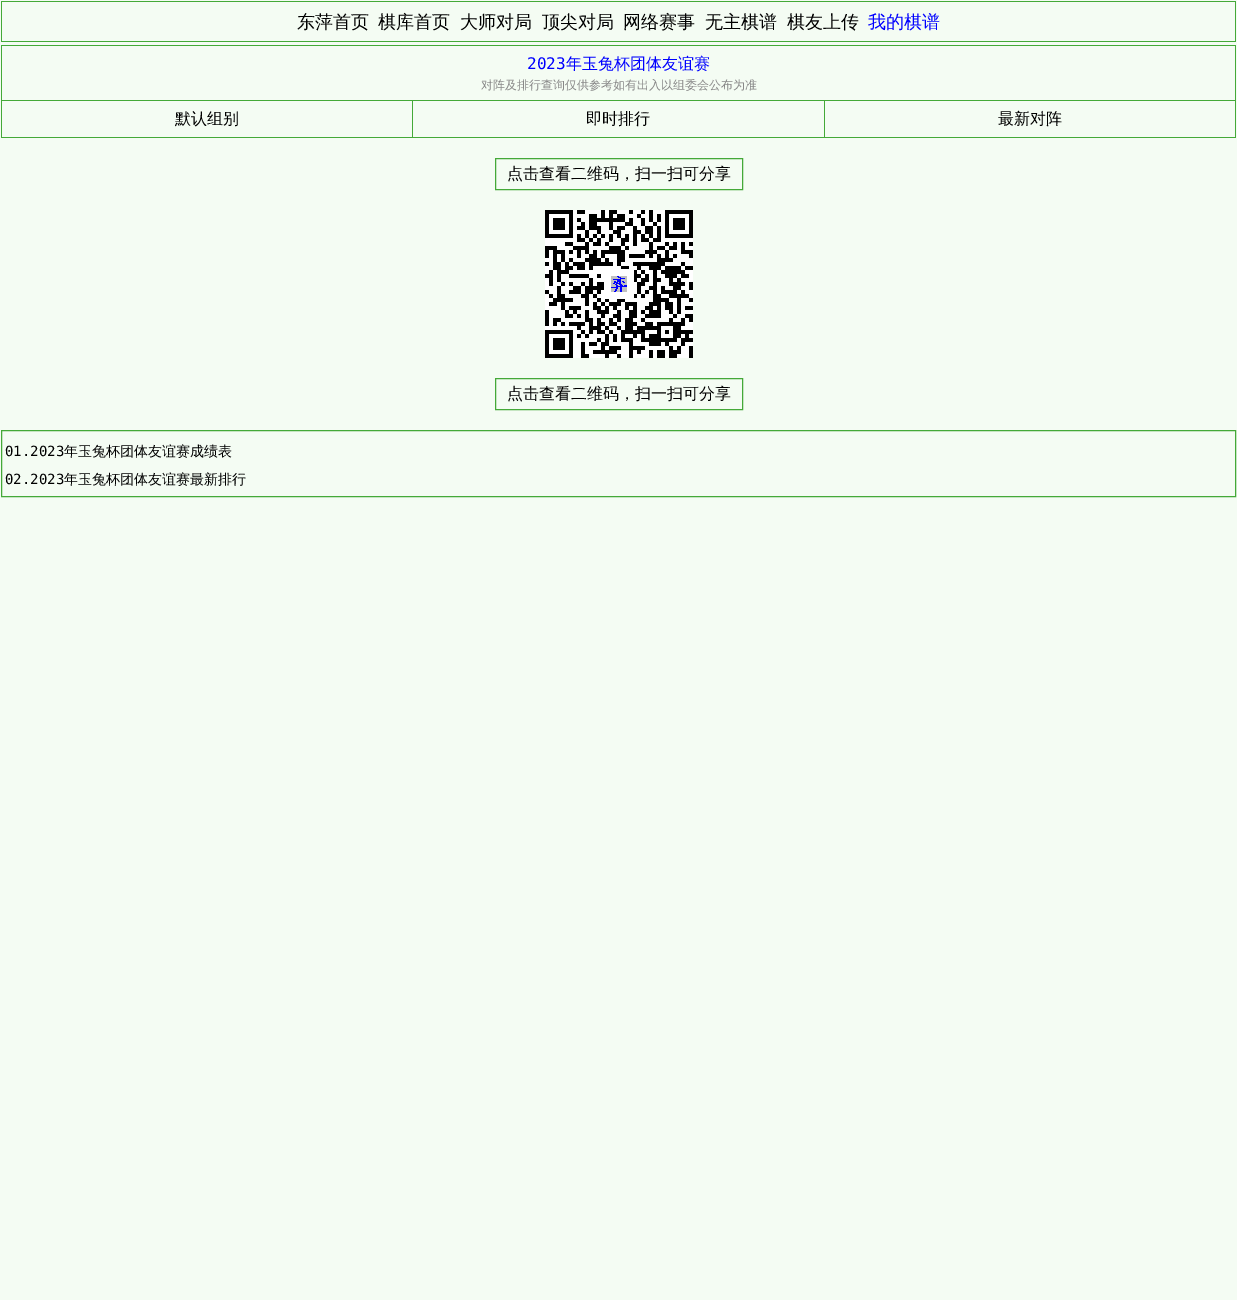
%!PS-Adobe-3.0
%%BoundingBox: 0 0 1237 1300
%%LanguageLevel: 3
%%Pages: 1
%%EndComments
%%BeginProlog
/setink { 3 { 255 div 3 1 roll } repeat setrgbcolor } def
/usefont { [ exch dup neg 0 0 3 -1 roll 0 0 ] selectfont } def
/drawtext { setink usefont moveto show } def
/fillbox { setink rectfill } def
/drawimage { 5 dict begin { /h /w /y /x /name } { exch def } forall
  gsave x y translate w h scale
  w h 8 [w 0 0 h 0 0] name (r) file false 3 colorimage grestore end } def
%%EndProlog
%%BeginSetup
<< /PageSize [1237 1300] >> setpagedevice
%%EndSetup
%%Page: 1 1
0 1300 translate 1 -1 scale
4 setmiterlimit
0 0 1237 1300 244 252 243 fillbox
1 1 1235 41 68 169 56 fillbox
2 2 1233 39 244 252 243 fillbox
(东萍首页) 297 28 /WenQuanYiZenHei-Medium 18 0 0 0 drawtext
(棋库首页) 378 28 /WenQuanYiZenHei-Medium 18 0 0 0 drawtext
(大师对局) 460 28 /WenQuanYiZenHei-Medium 18 0 0 0 drawtext
(顶尖对局) 542 28 /WenQuanYiZenHei-Medium 18 0 0 0 drawtext
(网络赛事) 623 28 /WenQuanYiZenHei-Medium 18 0 0 0 drawtext
(无主棋谱) 705 28 /WenQuanYiZenHei-Medium 18 0 0 0 drawtext
(棋友上传) 787 28 /WenQuanYiZenHei-Medium 18 0 0 0 drawtext
(我的棋谱) 868 28 /WenQuanYiZenHei-Medium 18 0 0 255 drawtext
1 45 1235 93 68 169 56 fillbox
2 46 1233 54 244 252 243 fillbox
(2023) 527 69 /DejaVuSansMono-Regular 16 0 0 255 drawtext
(年玉兔杯团体友谊赛) 566 69 /WenQuanYiZenHei-Medium 16 0 0 255 drawtext
(对阵及排行查询仅供参考如有出入以组委会公布为准) 481 89 /WenQuanYiZenHei-Medium 12 136 136 136 drawtext
2 101 410 36 244 252 243 fillbox
(默认组别) 175 124 /WenQuanYiZenHei-Medium 16 0 0 0 drawtext
413 101 411 36 244 252 243 fillbox
(即时排行) 586 124 /WenQuanYiZenHei-Medium 16 0 0 0 drawtext
825 101 410 36 244 252 243 fillbox
(最新对阵) 998 124 /WenQuanYiZenHei-Medium 16 0 0 0 drawtext
68 169 56 setink
495.5 158.5 247 31 rectstroke
(点击查看二维码，扫一扫可分享) 507 179 /WenQuanYiZenHei-Medium 16 0 0 0 drawtext
(assets/img1.rgb) 545 210 148 148 drawimage
68 169 56 setink
495.5 378.5 247 31 rectstroke
(点击查看二维码，扫一扫可分享) 507 399 /WenQuanYiZenHei-Medium 16 0 0 0 drawtext
68 169 56 setink
1.5 430.5 1234 66 rectstroke
(01.2023) 5 456 /DejaVuSansMono-Regular 14 0 0 0 drawtext
(年玉兔杯团体友谊赛成绩表) 64 456 /WenQuanYiZenHei-Medium 14 0 0 0 drawtext
(02.2023) 5 484 /DejaVuSansMono-Regular 14 0 0 0 drawtext
(年玉兔杯团体友谊赛最新排行) 64 484 /WenQuanYiZenHei-Medium 14 0 0 0 drawtext
showpage
%%EOF
